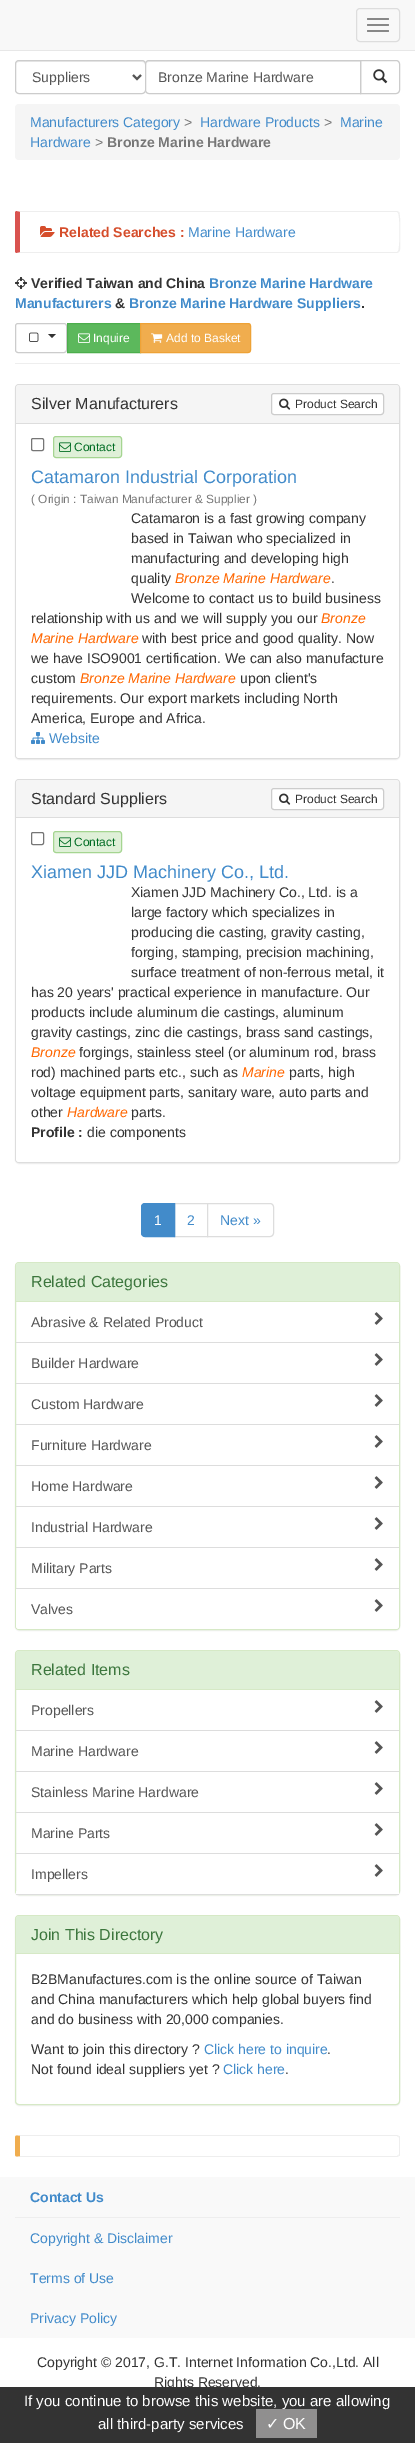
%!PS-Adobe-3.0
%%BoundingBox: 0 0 415 2443
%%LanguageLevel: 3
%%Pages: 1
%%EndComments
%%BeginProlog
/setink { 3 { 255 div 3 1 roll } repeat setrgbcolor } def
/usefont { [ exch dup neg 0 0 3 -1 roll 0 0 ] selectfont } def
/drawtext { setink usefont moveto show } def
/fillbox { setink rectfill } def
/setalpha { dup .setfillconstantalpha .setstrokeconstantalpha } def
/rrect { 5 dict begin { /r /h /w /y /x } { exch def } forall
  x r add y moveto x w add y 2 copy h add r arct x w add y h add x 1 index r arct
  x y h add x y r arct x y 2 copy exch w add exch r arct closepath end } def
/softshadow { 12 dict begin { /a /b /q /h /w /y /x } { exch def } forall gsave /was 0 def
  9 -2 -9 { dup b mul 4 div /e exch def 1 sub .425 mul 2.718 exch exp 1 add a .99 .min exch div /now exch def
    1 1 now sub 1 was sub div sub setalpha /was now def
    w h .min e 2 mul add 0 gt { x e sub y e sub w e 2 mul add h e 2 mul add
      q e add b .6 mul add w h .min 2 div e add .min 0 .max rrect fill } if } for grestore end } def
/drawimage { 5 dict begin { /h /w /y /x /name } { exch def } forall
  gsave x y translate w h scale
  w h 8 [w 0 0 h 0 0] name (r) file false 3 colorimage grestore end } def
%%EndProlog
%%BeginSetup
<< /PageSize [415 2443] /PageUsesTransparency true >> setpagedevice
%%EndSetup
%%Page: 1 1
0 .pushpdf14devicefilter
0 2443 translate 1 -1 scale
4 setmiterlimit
0 0 415 2443 255 255 255 fillbox
0 0 415 50 248 248 248 fillbox
0 50 415 1 231 231 231 fillbox
221 221 221 setink
356.5 8.5 43 33 3.5 rrect stroke
136 136 136 setink
367 18 22 2 1 rrect fill
367 24 22 2 1 rrect fill
367 30 22 2 1 rrect fill
236 236 236 setink
19 62 moveto 142 62 lineto 144 62 145 63 145 65 curveto 145 63 145 61 143 61 curveto 19 61 lineto 17 61 16 63 16 65 curveto 16 63 17 62 19 62 curveto closepath fill
204 204 204 setink
15.5 60.5 130 33 3.5 rrect stroke
85 85 85 setink
2 setlinewidth
133 75 moveto 137 79 lineto 141 75 lineto stroke
(Suppliers) 32 82 /LiberationSans-Regular 14 85 85 85 drawtext
204 204 204 setink
1 setlinewidth
360.5 60.5 moveto 396 60.5 lineto 398 60.5 399.5 62 399.5 64 curveto 399.5 90 lineto 399.5 92 398 93.5 396 93.5 curveto 360.5 93.5 lineto closepath stroke
255 255 255 setink
149 60 moveto 361 60 lineto 361 94 lineto 149 94 lineto 147 94 145 92 145 90 curveto 145 64 lineto 145 62 147 60 149 60 curveto closepath fill
236 236 236 setink
149 62 moveto 360 62 lineto 360 61 lineto 149 61 lineto 147 61 146 62 146 64 curveto 146 65 lineto 146 63 147 62 149 62 curveto closepath fill
204 204 204 setink
149 60.5 moveto 360.5 60.5 lineto 360.5 93.5 lineto 149 93.5 lineto 147 93.5 145.5 92 145.5 90 curveto 145.5 64 lineto 145.5 62 147 60.5 149 60.5 curveto closepath stroke
(Bronze Marine Hardware) 158 82 /LiberationSans-Regular 14 85 85 85 drawtext
(assets/img1.rgb) 373 69 15 15 drawimage
245 245 245 setink
15 104 385 56 4 rrect fill
(Manufacturers Category) 30 127 /LiberationSans-Regular 14 66 139 202 drawtext
(>) 184 127 /LiberationSans-Regular 14 119 119 119 drawtext
(Hardware Products) 200 127 /LiberationSans-Regular 14 66 139 202 drawtext
(>) 324 127 /LiberationSans-Regular 14 119 119 119 drawtext
(Marine) 340 127 /LiberationSans-Regular 14 66 139 202 drawtext
(Hardware) 30 147 /LiberationSans-Regular 14 66 139 202 drawtext
(>) 95 147 /LiberationSans-Regular 14 119 119 119 drawtext
(Bronze Marine Hardware) 107 147 /LiberationSans-Bold 14 119 119 119 drawtext
238 238 238 setink
18 211 moveto 16 211 lineto 20 212 lineto 397 212 lineto 398 213 lineto 399 212 lineto 397 211 lineto closepath fill
400 250 moveto 400 245 401 214 399 212 curveto 398 213 lineto 400 214 400 250 398 251 curveto 399 252 lineto closepath fill
18 253 moveto 397 253 lineto 399 252 lineto 398 251 lineto 397 252 lineto 20 252 lineto 16 253 lineto closepath fill
217 83 79 setink
20 212 moveto 16 211 lineto 15 212 15 213 15 214 curveto 15 250 lineto 15 251 15 252 16 253 curveto 20 252 lineto closepath fill
(assets/img2.rgb) 40 226 15 11 drawimage
(Related Searches :) 59 237 /LiberationSans-Bold 14 213 77 43 drawtext
(Marine Hardware) 188 237 /LiberationSans-Regular 14 66 139 202 drawtext
(assets/img3.rgb) 15 277 12 12 drawimage
(Verified Taiwan and China) 31 288 /LiberationSans-Bold 14 51 51 51 drawtext
(Bronze Marine Hardware) 209 288 /LiberationSans-Bold 14 66 139 202 drawtext
(Manufacturers) 15 308 /LiberationSans-Bold 14 66 139 202 drawtext
(&) 115 308 /LiberationSans-Bold 14 51 51 51 drawtext
(Bronze Marine Hardware Suppliers) 129 308 /LiberationSans-Bold 14 66 139 202 drawtext
(.) 361 308 /LiberationSans-Bold 14 51 51 51 drawtext
204 204 204 setink
15.5 323.5 51 29 2.5 rrect stroke
(assets/img4.rgb) 29 332 10 10 drawimage
51 51 51 setink
48 334 moveto 56 334 lineto 52 338 lineto closepath fill
92 184 92 setink
67.5 323.5 moveto 140.5 323.5 lineto 140.5 352.5 lineto 67.5 352.5 lineto closepath gsave fill grestore
76 174 76 setink
stroke
(assets/img5.rgb) 78 333 12 10 drawimage
(Inquire) 93 342 /LiberationSans-Regular 12 255 255 255 drawtext
240 173 78 setink
140.5 323.5 moveto 248 323.5 lineto 249.5 323.5 250.5 324.5 250.5 326 curveto 250.5 350 lineto 250.5 351.5 249.5 352.5 248 352.5 curveto 140.5 352.5 lineto closepath gsave fill grestore
238 162 54 setink
stroke
(assets/img6.rgb) 151 333 12 10 drawimage
(Add to Basket) 166 342 /LiberationSans-Regular 12 255 255 255 drawtext
15 363 385 1 238 238 238 fillbox
0 0 0 setink
15 385 385 375 4 0.5 0.05 softshadow
221 221 221 setink
15.5 384.5 384 374 3.5 rrect stroke
245 245 245 setink
19 385 moveto 396 385 lineto 397.5 385 399 386.5 399 388 curveto 399 424 lineto 16 424 lineto 16 388 lineto 16 386.5 17.5 385 19 385 curveto closepath fill
16 423 383 1 221 221 221 fillbox
(Silver Manufacturers) 31 409 /LiberationSans-Regular 16 51 51 51 drawtext
255 255 255 setink
271.5 393.5 112 21 2.5 rrect gsave fill grestore
204 204 204 setink
stroke
(assets/img7.rgb) 279 398 12 12 drawimage
(Product Search) 295 408 /LiberationSans-Regular 12 51 51 51 drawtext
255 255 255 setink
16 424 moveto 399 424 lineto 399 755 lineto 399 756.5 397.5 758 396 758 curveto 19 758 lineto 17.5 758 16 756.5 16 755 curveto closepath fill
118 118 118 setink
31.5 438.5 12 12 1.5 rrect stroke
223 240 216 setink
53.5 436.5 68 21 2.5 rrect gsave fill grestore
165 213 145 setink
stroke
(assets/img8.rgb) 59 442 12 10 drawimage
(Contact) 74 451 /LiberationSans-Regular 12 0 108 35 drawtext
(Catamaron Industrial Corporation) 31 483 /LiberationSans-Regular 18 66 139 202 drawtext
(\( Origin : Taiwan Manufacturer & Supplier \)) 31 503 /LiberationSans-Regular 11.9 119 119 119 drawtext
(Catamaron is a fast growing company) 131 523 /LiberationSans-Regular 14 51 51 51 drawtext
(based in Taiwan who specialized in) 131 543 /LiberationSans-Regular 14 51 51 51 drawtext
(manufacturing and developing high) 131 563 /LiberationSans-Regular 14 51 51 51 drawtext
(quality) 131 583 /LiberationSans-Regular 14 51 51 51 drawtext
(Bronze Marine Hardware) 175 583 /LiberationSans-Italic 14 255 102 0 drawtext
(.) 331 583 /LiberationSans-Regular 14 51 51 51 drawtext
(Welcome to contact us to build business) 131 603 /LiberationSans-Regular 14 51 51 51 drawtext
(relationship with us and we will supply you our) 31 623 /LiberationSans-Regular 14 51 51 51 drawtext
(Bronze) 321 623 /LiberationSans-Italic 14 255 102 0 drawtext
(Marine Hardware) 31 643 /LiberationSans-Italic 14 255 102 0 drawtext
(with best price and good quality. Now) 142 643 /LiberationSans-Regular 14 51 51 51 drawtext
(we have ISO9001 certification. We can also manufacture) 31 663 /LiberationSans-Regular 14 51 51 51 drawtext
(custom) 31 683 /LiberationSans-Regular 14 51 51 51 drawtext
(Bronze Marine Hardware) 80 683 /LiberationSans-Italic 14 255 102 0 drawtext
(upon client's) 240 683 /LiberationSans-Regular 14 51 51 51 drawtext
(requirements. Our export markets including North) 31 703 /LiberationSans-Regular 14 51 51 51 drawtext
(America, Europe and Africa.) 31 723 /LiberationSans-Regular 14 51 51 51 drawtext
(assets/img9.rgb) 31 732 14 12 drawimage
(Website) 49 743 /LiberationSans-Regular 14 66 139 202 drawtext
0 0 0 setink
15 780 385 384 4 0.5 0.05 softshadow
221 221 221 setink
15.5 779.5 384 383 3.5 rrect stroke
245 245 245 setink
19 780 moveto 396 780 lineto 397.5 780 399 781.5 399 783 curveto 399 818 lineto 16 818 lineto 16 783 lineto 16 781.5 17.5 780 19 780 curveto closepath fill
16 817 383 1 221 221 221 fillbox
(Standard Suppliers) 31 804 /LiberationSans-Regular 16 51 51 51 drawtext
255 255 255 setink
271.5 788.5 112 21 2.5 rrect gsave fill grestore
204 204 204 setink
stroke
(assets/img7.rgb) 279 793 12 12 drawimage
(Product Search) 295 803 /LiberationSans-Regular 12 51 51 51 drawtext
255 255 255 setink
16 818 moveto 399 818 lineto 399 1159 lineto 399 1160.5 397.5 1162 396 1162 curveto 19 1162 lineto 17.5 1162 16 1160.5 16 1159 curveto closepath fill
118 118 118 setink
31.5 832.5 12 12 1.5 rrect stroke
223 240 216 setink
53.5 831.5 68 21 2.5 rrect gsave fill grestore
165 213 145 setink
stroke
(assets/img8.rgb) 59 837 12 10 drawimage
(Contact) 74 846 /LiberationSans-Regular 12 0 108 35 drawtext
(Xiamen JJD Machinery Co., Ltd.) 31 878 /LiberationSans-Regular 18 66 139 202 drawtext
(Xiamen JJD Machinery Co., Ltd. is a) 131 897 /LiberationSans-Regular 14 51 51 51 drawtext
(large factory which specializes in) 131 917 /LiberationSans-Regular 14 51 51 51 drawtext
(producing die casting, gravity casting,) 131 937 /LiberationSans-Regular 14 51 51 51 drawtext
(forging, stamping, precision machining,) 131 957 /LiberationSans-Regular 14 51 51 51 drawtext
(surface treatment of non-ferrous metal, it) 131 977 /LiberationSans-Regular 14 51 51 51 drawtext
(has 20 years' practical experience in manufacture. Our) 31 997 /LiberationSans-Regular 14 51 51 51 drawtext
(products include aluminum die castings, aluminum) 31 1017 /LiberationSans-Regular 14 51 51 51 drawtext
(gravity castings, zinc die castings, brass sand castings,) 31 1037 /LiberationSans-Regular 14 51 51 51 drawtext
(Bronze) 31 1057 /LiberationSans-Italic 14 255 102 0 drawtext
(forgings, stainless steel \(or aluminum rod, brass) 79 1057 /LiberationSans-Regular 14 51 51 51 drawtext
(rod\) machined parts etc., such as) 31 1077 /LiberationSans-Regular 14 51 51 51 drawtext
(Marine) 242 1077 /LiberationSans-Italic 14 255 102 0 drawtext
(parts, high) 289 1077 /LiberationSans-Regular 14 51 51 51 drawtext
(voltage equipment parts, sanitary ware, auto parts and) 31 1097 /LiberationSans-Regular 14 51 51 51 drawtext
(other) 31 1117 /LiberationSans-Regular 14 51 51 51 drawtext
(Hardware) 67 1117 /LiberationSans-Italic 14 255 102 0 drawtext
(parts.) 131 1117 /LiberationSans-Regular 14 51 51 51 drawtext
(Profile :) 31 1137 /LiberationSans-Bold 14 51 51 51 drawtext
(die components) 87 1137 /LiberationSans-Regular 14 51 51 51 drawtext
221 221 221 setink
174.5 1203.5 33 33 rectstroke
66 139 202 setink
145 1203.5 moveto 174.5 1203.5 lineto 174.5 1236.5 lineto 145 1236.5 lineto 143 1236.5 141.5 1235 141.5 1233 curveto 141.5 1207 lineto 141.5 1205 143 1203.5 145 1203.5 curveto closepath gsave fill grestore
stroke
(1) 154 1225 /LiberationSans-Regular 14 255 255 255 drawtext
(2) 187 1225 /LiberationSans-Regular 14 66 139 202 drawtext
255 255 255 setink
207.5 1203.5 moveto 270 1203.5 lineto 272 1203.5 273.5 1205 273.5 1207 curveto 273.5 1233 lineto 273.5 1235 272 1236.5 270 1236.5 curveto 207.5 1236.5 lineto closepath gsave fill grestore
221 221 221 setink
stroke
(Next ») 220 1225 /LiberationSans-Regular 14 66 139 202 drawtext
0 0 0 setink
15 1263 385 368 4 0.5 0.05 softshadow
255 255 255 setink
15.5 1262.5 384 367 3.5 rrect gsave fill grestore
214 233 198 setink
stroke
223 240 216 setink
19 1263 moveto 396 1263 lineto 397.5 1263 399 1264.5 399 1266 curveto 399 1302 lineto 16 1302 lineto 16 1266 lineto 16 1264.5 17.5 1263 19 1263 curveto closepath fill
16 1301 383 1 214 233 198 fillbox
(Related Categories) 31 1287 /LiberationSans-Regular 16 60 118 61 drawtext
16 1342 383 1 221 221 221 fillbox
(Abrasive & Related Product) 31 1327 /LiberationSans-Regular 14 85 85 85 drawtext
(assets/img10.rgb) 374 1312 9 13 drawimage
16 1383 383 1 221 221 221 fillbox
(Builder Hardware) 31 1368 /LiberationSans-Regular 14 85 85 85 drawtext
(assets/img10.rgb) 374 1353 9 13 drawimage
16 1424 383 1 221 221 221 fillbox
(Custom Hardware) 31 1409 /LiberationSans-Regular 14 85 85 85 drawtext
(assets/img10.rgb) 374 1394 9 13 drawimage
16 1465 383 1 221 221 221 fillbox
(Furniture Hardware) 31 1450 /LiberationSans-Regular 14 85 85 85 drawtext
(assets/img10.rgb) 374 1435 9 13 drawimage
16 1506 383 1 221 221 221 fillbox
(Home Hardware) 31 1491 /LiberationSans-Regular 14 85 85 85 drawtext
(assets/img10.rgb) 374 1476 9 13 drawimage
16 1547 383 1 221 221 221 fillbox
(Industrial Hardware) 31 1532 /LiberationSans-Regular 14 85 85 85 drawtext
(assets/img10.rgb) 374 1517 9 13 drawimage
(Military Parts) 31 1573 /LiberationSans-Regular 14 85 85 85 drawtext
(assets/img10.rgb) 374 1558 9 13 drawimage
255 255 255 setink
16 1588 moveto 399 1588 lineto 399 1626 lineto 399 1627.5 397.5 1629 396 1629 curveto 19 1629 lineto 17.5 1629 16 1627.5 16 1626 curveto closepath fill
16 1588 383 1 221 221 221 fillbox
(Valves) 31 1614 /LiberationSans-Regular 14 85 85 85 drawtext
(assets/img10.rgb) 374 1599 9 13 drawimage
0 0 0 setink
15 1651 385 245 4 0.5 0.05 softshadow
255 255 255 setink
15.5 1650.5 384 244 3.5 rrect gsave fill grestore
214 233 198 setink
stroke
223 240 216 setink
19 1651 moveto 396 1651 lineto 397.5 1651 399 1652.5 399 1654 curveto 399 1690 lineto 16 1690 lineto 16 1654 lineto 16 1652.5 17.5 1651 19 1651 curveto closepath fill
16 1689 383 1 214 233 198 fillbox
(Related Items) 31 1675 /LiberationSans-Regular 16 60 118 61 drawtext
16 1730 383 1 221 221 221 fillbox
(Propellers) 31 1715 /LiberationSans-Regular 14 85 85 85 drawtext
(assets/img10.rgb) 374 1700 9 13 drawimage
16 1771 383 1 221 221 221 fillbox
(Marine Hardware) 31 1756 /LiberationSans-Regular 14 85 85 85 drawtext
(assets/img10.rgb) 374 1741 9 13 drawimage
16 1812 383 1 221 221 221 fillbox
(Stainless Marine Hardware) 31 1797 /LiberationSans-Regular 14 85 85 85 drawtext
(assets/img10.rgb) 374 1782 9 13 drawimage
16 1853 383 1 221 221 221 fillbox
(Marine Parts) 31 1838 /LiberationSans-Regular 14 85 85 85 drawtext
(assets/img10.rgb) 374 1823 9 13 drawimage
16 1891 383 3 255 255 255 fillbox
16 1894 383 1 221 221 221 fillbox
(Impellers) 31 1879 /LiberationSans-Regular 14 85 85 85 drawtext
(assets/img10.rgb) 374 1864 9 13 drawimage
0 0 0 setink
15 1916 385 190 4 0.5 0.05 softshadow
255 255 255 setink
15.5 1915.5 384 189 3.5 rrect gsave fill grestore
214 233 198 setink
stroke
223 240 216 setink
19 1916 moveto 396 1916 lineto 397.5 1916 399 1917.5 399 1919 curveto 399 1954 lineto 16 1954 lineto 16 1919 lineto 16 1917.5 17.5 1916 19 1916 curveto closepath fill
16 1953 383 1 214 233 198 fillbox
(Join This Directory) 31 1940 /LiberationSans-Regular 16 60 118 61 drawtext
(B2BManufactures.com is the online source of Taiwan) 31 1984 /LiberationSans-Regular 14 51 51 51 drawtext
(and China manufacturers which help global buyers find) 31 2004 /LiberationSans-Regular 14 51 51 51 drawtext
(and do business with 20,000 companies.) 31 2024 /LiberationSans-Regular 14 51 51 51 drawtext
(Want to join this directory ?) 31 2054 /LiberationSans-Regular 14 51 51 51 drawtext
(Click here to inquire) 204 2054 /LiberationSans-Regular 14 66 139 202 drawtext
(.) 327 2054 /LiberationSans-Regular 14 51 51 51 drawtext
(Not found ideal suppliers yet ?) 31 2074 /LiberationSans-Regular 14 51 51 51 drawtext
(Click here) 223 2074 /LiberationSans-Regular 14 66 139 202 drawtext
(.) 285 2074 /LiberationSans-Regular 14 51 51 51 drawtext
238 238 238 setink
18 2135 moveto 16 2135 lineto 20 2136 lineto 397 2136 lineto 398 2137 lineto 399 2136 lineto 397 2135 lineto closepath fill
400 2154 moveto 400 2138 lineto 400 2137 400 2136 399 2136 curveto 398.5 2136.5 lineto 399 2137 399 2137.5 399 2138 curveto 399 2154 lineto 399 2154.5 399 2155 398.5 2155.5 curveto 399 2156 lineto 400 2156 400 2155 400 2154 curveto closepath fill
18 2157 moveto 397 2157 lineto 399 2156 lineto 398 2155 lineto 397 2156 lineto 20 2156 lineto 16 2157 lineto closepath fill
240 173 78 setink
20 2136 moveto 16.5 2135.5 lineto 15.5 2135.5 15 2136.5 15 2138 curveto 15 2154 lineto 15 2155.5 15.5 2156.5 16.5 2156.5 curveto 20 2156 lineto closepath fill
0 2177 415 161 249 249 249 fillbox
15 2217 385 1 238 238 238 fillbox
(Contact Us) 30 2202 /LiberationSans-Bold 14 66 139 202 drawtext
(Copyright & Disclaimer) 30 2243 /LiberationSans-Regular 14 66 139 202 drawtext
(Terms of Use) 30 2283 /LiberationSans-Regular 14 66 139 202 drawtext
(Privacy Policy) 30 2323 /LiberationSans-Regular 14 66 139 202 drawtext
(Copyright © 2017, G.T. Internet Information Co.,Ltd. All) 37 2367 /LiberationSans-Regular 14 51 51 51 drawtext
(Rights Reserved.) 154 2387 /LiberationSans-Regular 14 51 51 51 drawtext
0 2387 415 56 51 51 51 fillbox
(If you continue to browse this website, you are allowing) 24 2406 /LiberationSans-Regular 15 255 255 255 drawtext
(all third-party services) 98 2429 /LiberationSans-Regular 15 255 255 255 drawtext
0.85 setalpha
256 2409 61 29 160 159 159 fillbox
1 setalpha
(✓) 266 2429 /DejaVuSans-Regular 16 255 255 255 drawtext
(OK) 283 2429 /LiberationSans-Regular 16 255 255 255 drawtext
.poppdf14devicefilter showpage
%%EOF
